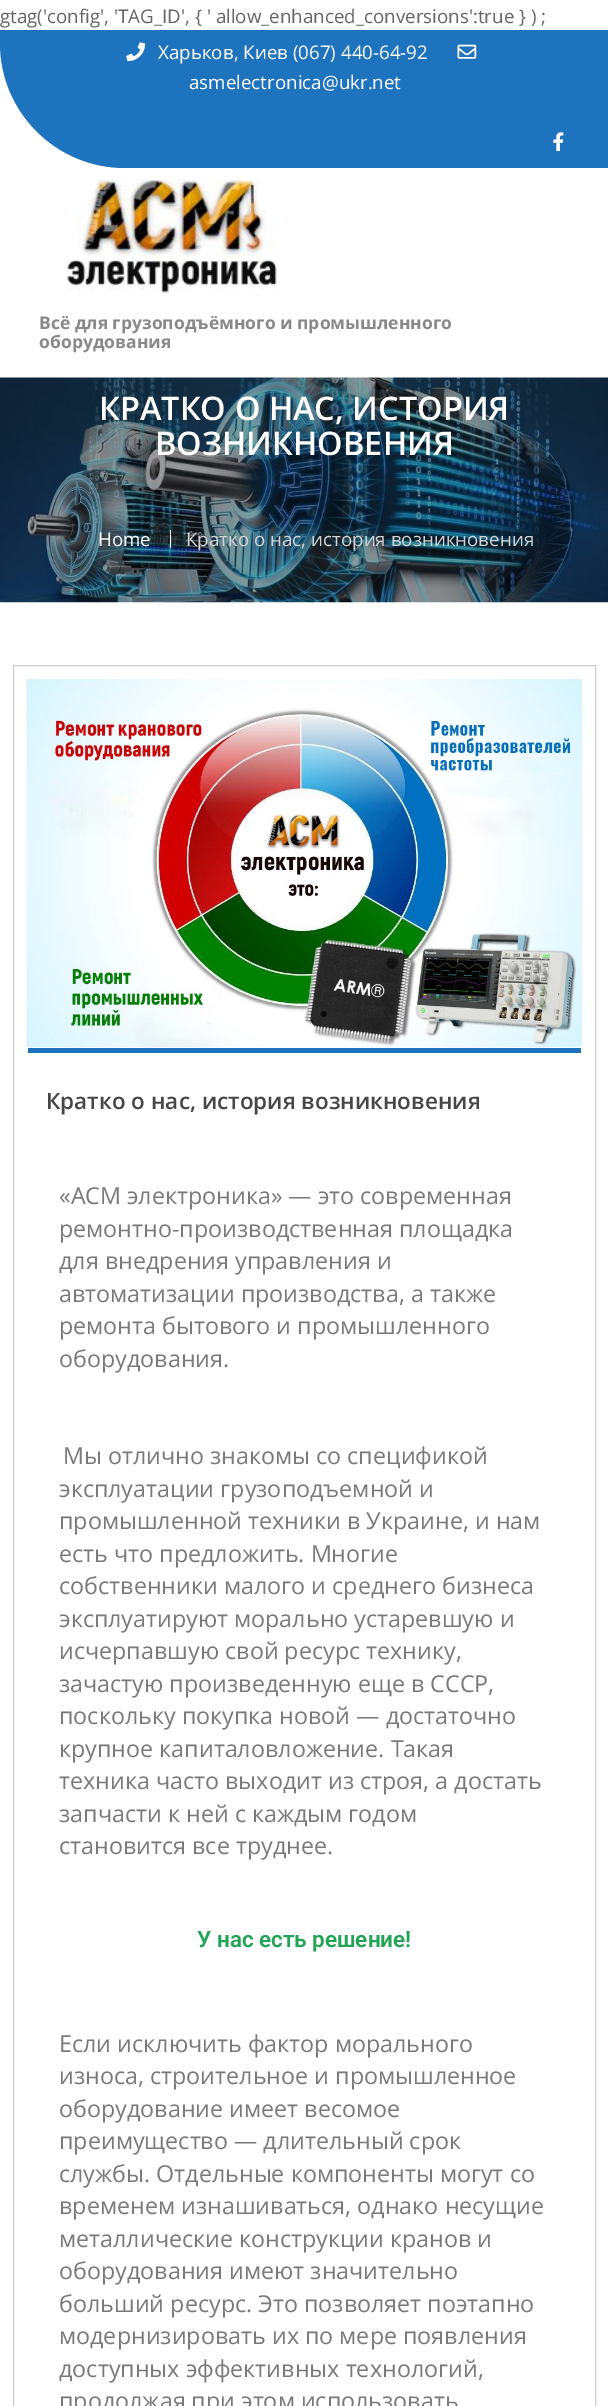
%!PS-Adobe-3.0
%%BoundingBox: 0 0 608 2406
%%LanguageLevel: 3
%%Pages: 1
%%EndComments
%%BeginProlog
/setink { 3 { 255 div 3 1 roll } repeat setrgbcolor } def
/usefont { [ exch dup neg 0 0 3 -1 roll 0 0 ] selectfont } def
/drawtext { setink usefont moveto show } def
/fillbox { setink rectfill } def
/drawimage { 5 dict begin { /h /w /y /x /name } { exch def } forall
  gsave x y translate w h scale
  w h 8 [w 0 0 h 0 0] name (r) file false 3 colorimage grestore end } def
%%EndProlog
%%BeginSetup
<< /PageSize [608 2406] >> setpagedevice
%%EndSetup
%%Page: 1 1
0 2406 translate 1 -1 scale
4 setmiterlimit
0 0 608 2406 255 255 255 fillbox
(gtag\('config', 'TAG_ID', { ' allow_enhanced_conversions':true } \) ;) 0 23 /OpenSans-Regular 18.75 102 102 102 drawtext
30 115 190 setink
0 30 moveto 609 30 lineto 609 168 lineto 125 168 lineto 56 168 0 112 0 43 curveto closepath fill
(assets/img1.rgb) 126 42 19 20 drawimage
(Харьков, Киев \(067\) 440-64-92) 158 59 /OpenSans-Regular 18.75 255 255 255 drawtext
(assets/img2.rgb) 457 44 20 15 drawimage
(asmelectronica@ukr.net) 189 89 /OpenSans-Regular 18.75 255 255 255 drawtext
(assets/img3.rgb) 553 132 11 20 drawimage
(assets/img4.rgb) 67 180 211 113 drawimage
(Всё для грузоподъёмного и промышленного) 39 329 /OpenSans-Bold 17.5 138 137 137 drawtext
(оборудования) 39 348 /OpenSans-Bold 17.5 138 137 137 drawtext
(assets/img5.rgb) 0 377 608 226 drawimage
(КРАТКО О НАС, ИСТОРИЯ) 99 420 /OpenSans-SemiBold 32.5 255 255 255 drawtext
(ВОЗНИКНОВЕНИЯ) 155 455 /OpenSans-SemiBold 32.5 255 255 255 drawtext
(Home) 98 546 /OpenSans-Regular 18.75 255 255 255 drawtext
170 530 1 18 255 255 255 fillbox
(Кратко о нас, история возникновения) 186 546 /OpenSans-Regular 18.75 211 211 211 drawtext
205 209 204 setink
13.5 665.5 582 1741 rectstroke
(assets/img6.rgb) 26 679 557 369 drawimage
28 1048 553 5 30 115 190 fillbox
(Кратко о нас, история возникновения) 46 1109 /OpenSans-SemiBold 22.5 70 70 70 drawtext
(«АСМ электроника» — это современная) 59 1204 /OpenSans-Regular 23.3 122 122 122 drawtext
(ремонтно-производственная площадка) 59 1237 /OpenSans-Regular 23.3 122 122 122 drawtext
(для внедрения управления и) 59 1269 /OpenSans-Regular 23.3 122 122 122 drawtext
(автоматизации производства, а также) 59 1302 /OpenSans-Regular 23.3 122 122 122 drawtext
(ремонта бытового и промышленного) 59 1334 /OpenSans-Regular 23.3 122 122 122 drawtext
(оборудования.) 59 1367 /OpenSans-Regular 23.3 122 122 122 drawtext
(Мы отлично знакомы со спецификой) 63 1464 /OpenSans-Regular 23.3 122 122 122 drawtext
(эксплуатации грузоподъемной и) 59 1497 /OpenSans-Regular 23.3 122 122 122 drawtext
(промышленной техники в Украине, и нам) 59 1529 /OpenSans-Regular 23.3 122 122 122 drawtext
(есть что предложить. Многие) 59 1562 /OpenSans-Regular 23.3 122 122 122 drawtext
(собственники малого и среднего бизнеса) 59 1594 /OpenSans-Regular 23.3 122 122 122 drawtext
(эксплуатируют морально устаревшую и) 59 1627 /OpenSans-Regular 23.3 122 122 122 drawtext
(исчерпавшую свой ресурс технику,) 59 1659 /OpenSans-Regular 23.3 122 122 122 drawtext
(зачастую произведенную еще в СССР,) 59 1692 /OpenSans-Regular 23.3 122 122 122 drawtext
(поскольку покупка новой — достаточно) 59 1724 /OpenSans-Regular 23.3 122 122 122 drawtext
(крупное капиталовложение. Такая) 59 1757 /OpenSans-Regular 23.3 122 122 122 drawtext
(техника часто выходит из строя, а достать) 59 1789 /OpenSans-Regular 23.3 122 122 122 drawtext
(запчасти к ней с каждым годом) 59 1822 /OpenSans-Regular 23.3 122 122 122 drawtext
(становится все труднее.) 59 1854 /OpenSans-Regular 23.3 122 122 122 drawtext
(У нас есть решение!) 197 1947 /Roboto-SemiBold 22.5 35 164 85 drawtext
(Если исключить фактор морального) 59 2052 /OpenSans-Regular 23.3 122 122 122 drawtext
(износа, строительное и промышленное) 59 2084 /OpenSans-Regular 23.3 122 122 122 drawtext
(оборудование имеет весомое) 59 2117 /OpenSans-Regular 23.3 122 122 122 drawtext
(преимущество — длительный срок) 59 2149 /OpenSans-Regular 23.3 122 122 122 drawtext
(службы. Отдельные компоненты могут со) 59 2182 /OpenSans-Regular 23.3 122 122 122 drawtext
(временем изнашиваться, однако несущие) 59 2214 /OpenSans-Regular 23.3 122 122 122 drawtext
(металлические конструкции кранов и) 59 2247 /OpenSans-Regular 23.3 122 122 122 drawtext
(оборудования имеют значительно) 59 2279 /OpenSans-Regular 23.3 122 122 122 drawtext
(больший ресурс. Это позволяет поэтапно) 59 2312 /OpenSans-Regular 23.3 122 122 122 drawtext
(модернизировать их по мере появления) 59 2344 /OpenSans-Regular 23.3 122 122 122 drawtext
(доступных эффективных технологий,) 59 2377 /OpenSans-Regular 23.3 122 122 122 drawtext
(продолжая при этом использовать) 59 2409 /OpenSans-Regular 23.3 122 122 122 drawtext
showpage
%%EOF
